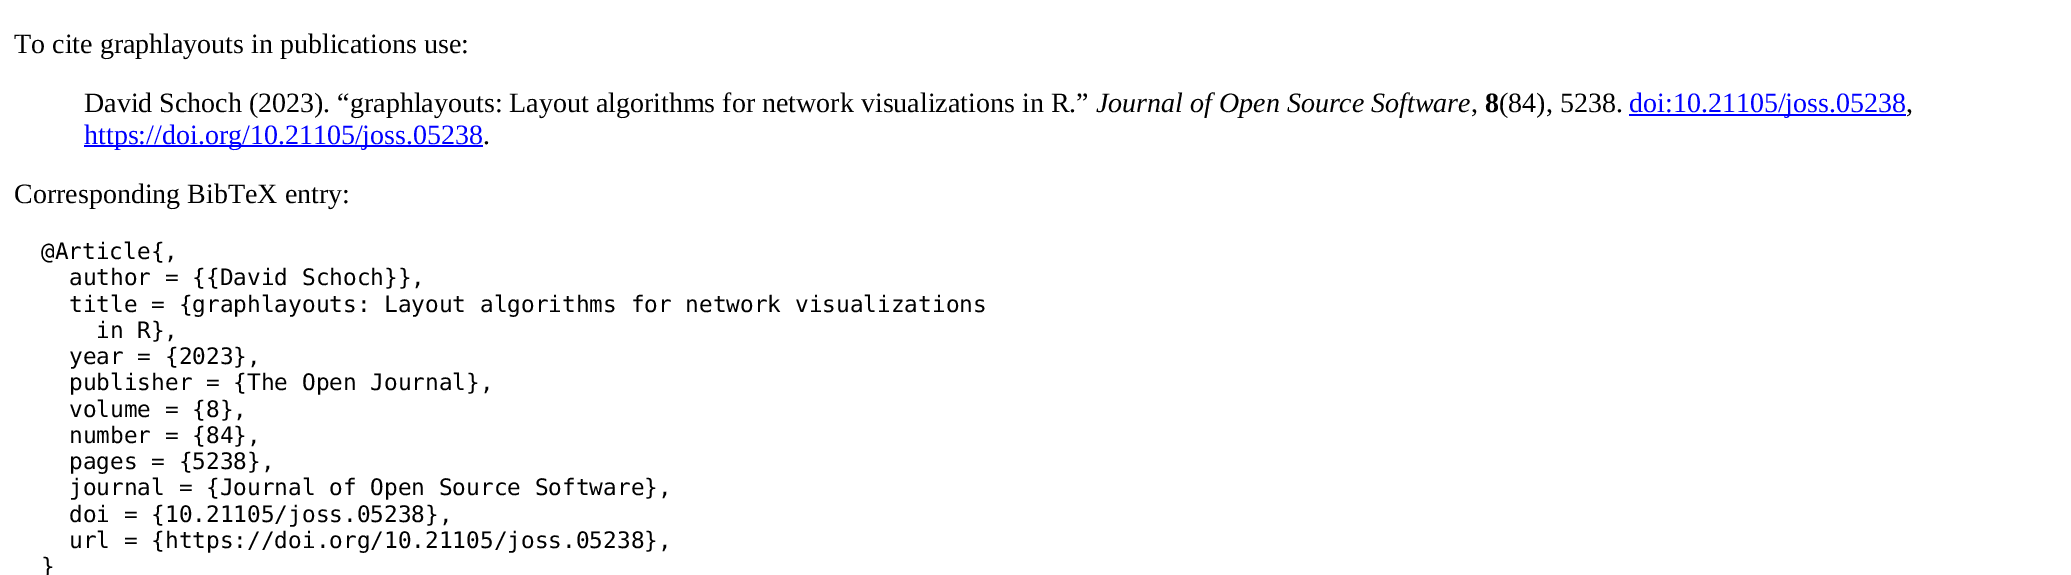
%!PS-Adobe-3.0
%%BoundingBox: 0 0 2071 575
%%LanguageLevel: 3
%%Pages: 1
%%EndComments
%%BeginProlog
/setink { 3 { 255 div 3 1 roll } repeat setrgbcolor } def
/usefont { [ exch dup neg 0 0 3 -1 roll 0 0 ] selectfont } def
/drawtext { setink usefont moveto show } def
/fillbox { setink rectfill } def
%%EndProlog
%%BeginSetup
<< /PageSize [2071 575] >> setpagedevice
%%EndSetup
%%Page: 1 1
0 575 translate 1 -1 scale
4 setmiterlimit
0 0 2071 575 255 255 255 fillbox
(To cite graphlayouts in publications use:) 14 53 /LiberationSerif-Regular 28 0 0 0 drawtext
(David Schoch \(2023\). “graphlayouts: Layout algorithms for network visualizations in R.”) 84 112 /LiberationSerif-Regular 28 0 0 0 drawtext
(Journal of Open Source Software) 1096 112 /LiberationSerif-Italic 28 0 0 0 drawtext
(,) 1471 112 /LiberationSerif-Regular 28 0 0 0 drawtext
(8) 1485 112 /LiberationSerif-Bold 28 0 0 0 drawtext
(\(84\), 5238.) 1499 112 /LiberationSerif-Regular 28 0 0 0 drawtext
1629 114 277 2 0 0 255 fillbox
(doi:10.21105/joss.05238) 1629 112 /LiberationSerif-Regular 28 0 0 255 drawtext
(,) 1906 112 /LiberationSerif-Regular 28 0 0 0 drawtext
84 145 399 2 0 0 255 fillbox
(https://doi.org/10.21105/joss.05238) 84 144 /LiberationSerif-Regular 28 0 0 255 drawtext
(.) 483 144 /LiberationSerif-Regular 28 0 0 0 drawtext
(Corresponding BibTeX entry:) 14 203 /LiberationSerif-Regular 28 0 0 0 drawtext
(@Article{,) 41 259 /DejaVuSansMono-Regular 22.75 0 0 0 drawtext
(author = {{David Schoch}},) 69 285 /DejaVuSansMono-Regular 22.75 0 0 0 drawtext
(title = {graphlayouts: Layout algorithms for network visualizations) 69 312 /DejaVuSansMono-Regular 22.75 0 0 0 drawtext
(in R},) 96 338 /DejaVuSansMono-Regular 22.75 0 0 0 drawtext
(year = {2023},) 69 364 /DejaVuSansMono-Regular 22.75 0 0 0 drawtext
(publisher = {The Open Journal},) 69 390 /DejaVuSansMono-Regular 22.75 0 0 0 drawtext
(volume = {8},) 69 417 /DejaVuSansMono-Regular 22.75 0 0 0 drawtext
(number = {84},) 69 443 /DejaVuSansMono-Regular 22.75 0 0 0 drawtext
(pages = {5238},) 69 469 /DejaVuSansMono-Regular 22.75 0 0 0 drawtext
(journal = {Journal of Open Source Software},) 69 495 /DejaVuSansMono-Regular 22.75 0 0 0 drawtext
(doi = {10.21105/joss.05238},) 69 522 /DejaVuSansMono-Regular 22.75 0 0 0 drawtext
(url = {https://doi.org/10.21105/joss.05238},) 69 548 /DejaVuSansMono-Regular 22.75 0 0 0 drawtext
(}) 41 574 /DejaVuSansMono-Regular 22.75 0 0 0 drawtext
showpage
%%EOF
